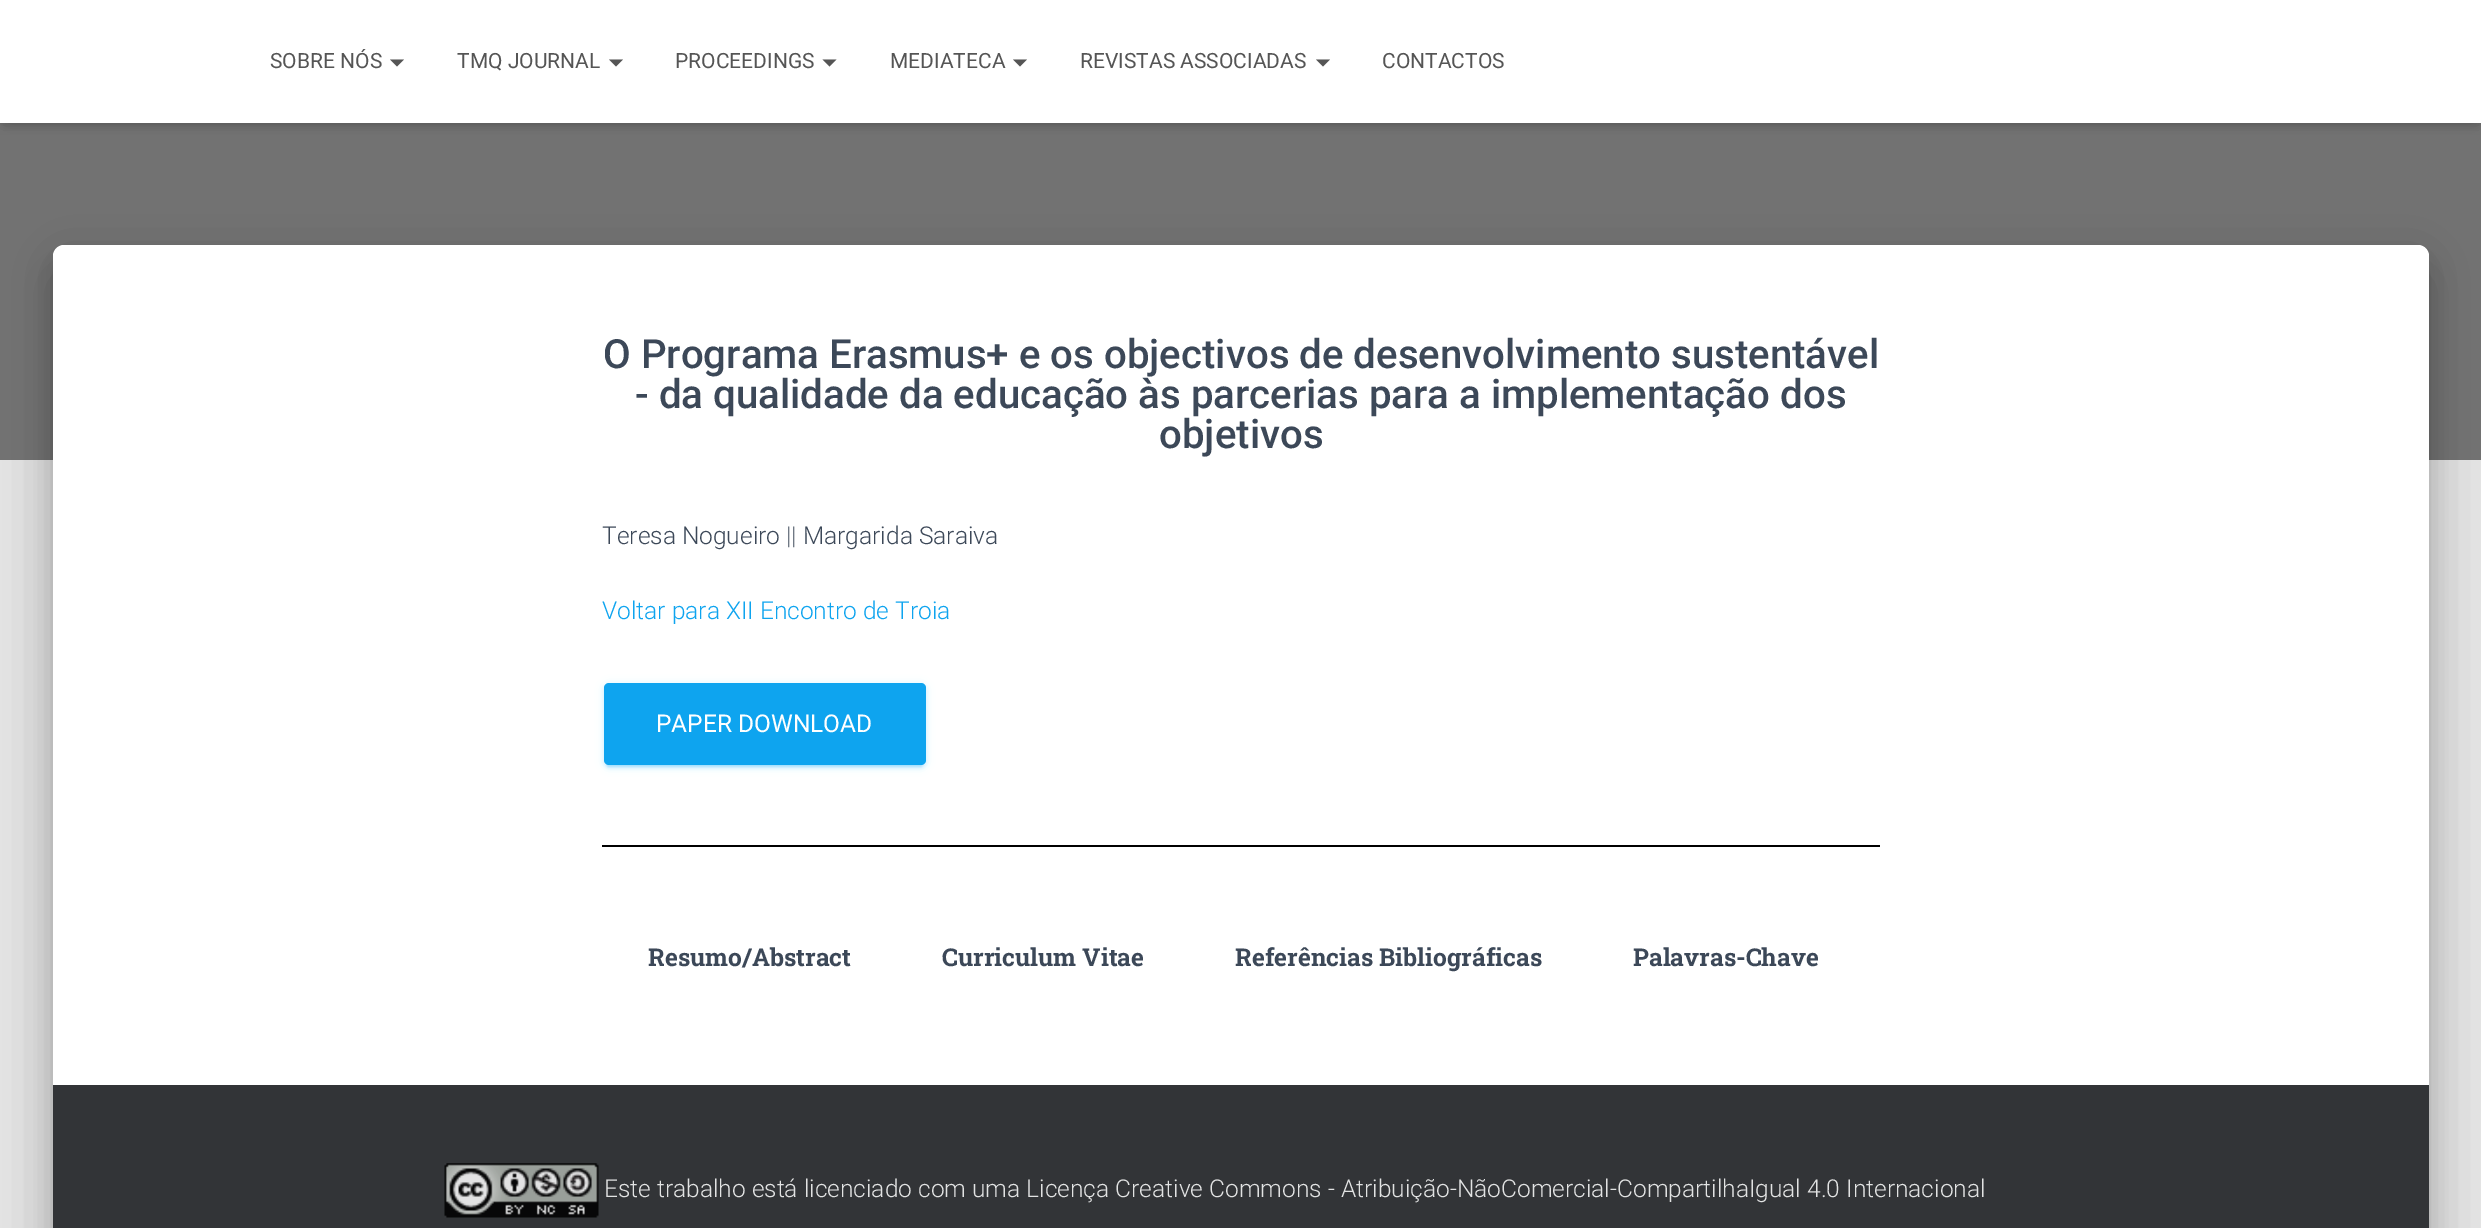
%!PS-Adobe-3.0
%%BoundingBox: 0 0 2481 1228
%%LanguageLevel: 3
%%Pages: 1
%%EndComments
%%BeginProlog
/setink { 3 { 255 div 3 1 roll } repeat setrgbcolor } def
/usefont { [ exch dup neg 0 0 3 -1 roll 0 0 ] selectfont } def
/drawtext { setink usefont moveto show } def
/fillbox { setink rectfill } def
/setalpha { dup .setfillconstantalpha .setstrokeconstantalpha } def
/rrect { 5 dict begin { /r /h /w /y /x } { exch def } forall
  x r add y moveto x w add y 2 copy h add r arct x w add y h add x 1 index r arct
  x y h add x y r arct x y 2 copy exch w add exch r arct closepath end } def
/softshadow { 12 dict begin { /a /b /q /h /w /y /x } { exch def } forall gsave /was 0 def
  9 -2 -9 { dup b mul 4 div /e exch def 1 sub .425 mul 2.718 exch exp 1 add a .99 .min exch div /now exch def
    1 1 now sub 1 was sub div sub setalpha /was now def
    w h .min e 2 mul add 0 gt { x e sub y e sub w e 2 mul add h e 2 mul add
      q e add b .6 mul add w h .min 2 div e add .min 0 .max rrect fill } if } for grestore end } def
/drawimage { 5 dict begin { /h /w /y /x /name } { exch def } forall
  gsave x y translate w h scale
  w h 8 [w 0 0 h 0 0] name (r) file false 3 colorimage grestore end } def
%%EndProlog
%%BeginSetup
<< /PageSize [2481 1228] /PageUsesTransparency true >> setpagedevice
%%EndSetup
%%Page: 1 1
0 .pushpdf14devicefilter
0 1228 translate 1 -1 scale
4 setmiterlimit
0 0 2481 1228 229 229 229 fillbox
0 123 2481 337 114 114 114 fillbox
0 0 0 setink
4 11 2474 115 0 4.5 0.1 softshadow
0 2 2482 122 0 9 0.12 softshadow
11 12 2460 102 0 9 0.42 softshadow
0 0 2481 123 255 255 255 fillbox
(SOBRE NÓS) 270 68 /Roboto-Regular 21 85 85 85 drawtext
390 59.5 moveto 404 59.5 lineto 397 66.5 lineto closepath fill
(TMQ JOURNAL) 457 68 /Roboto-Regular 21 85 85 85 drawtext
609 59.5 moveto 623 59.5 lineto 616 66.5 lineto closepath fill
(PROCEEDINGS) 675 68 /Roboto-Regular 21 85 85 85 drawtext
822.5 59.5 moveto 836.5 59.5 lineto 829.5 66.5 lineto closepath fill
(MEDIATECA) 890 68 /Roboto-Regular 21 85 85 85 drawtext
1013 59.5 moveto 1027 59.5 lineto 1020 66.5 lineto closepath fill
(REVISTAS ASSOCIADAS) 1080 68 /Roboto-Regular 21 85 85 85 drawtext
1316 59.5 moveto 1330 59.5 lineto 1323 66.5 lineto closepath fill
(CONTACTOS) 1382 68 /Roboto-Regular 21 85 85 85 drawtext
0 0 0 setink
61 268 2359 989 2 9 0.2 softshadow
44 247 2394 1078 19 26 0.12 softshadow
49 270 2384 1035 14 21 0.14 softshadow
255 255 255 setink
64 245 moveto 2418 245 lineto 2424 245 2429 250 2429 256 curveto 2429 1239 lineto 53 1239 lineto 53 256 lineto 53 250 58 245 64 245 curveto closepath fill
(O Programa Erasmus+ e os objectivos de desenvolvimento sustentável) 603 368 /Roboto-Medium 40.25 60 72 88 drawtext
(- da qualidade da educação às parcerias para a implementação dos) 635 408 /Roboto-Medium 40.25 60 72 88 drawtext
(objetivos) 1159 448 /Roboto-Medium 40.25 60 72 88 drawtext
(Teresa Nogueiro || Margarida Saraiva) 602 544 /Roboto-Light 24.5 60 72 88 drawtext
(Voltar para XII Encontro de Troia) 602 619 /Roboto-Light 24.5 14 164 239 drawtext
604 684 322 83 5 4.5 0.12 softshadow
607 691 315 76 2 1 0.2 softshadow
604 686 322 82 5 2 0.14 softshadow
604 683 322 82 5 rrect fill
(PAPER DOWNLOAD) 656 732 /Roboto-Regular 24.5 255 255 255 drawtext
602 845 1278 2 0 0 0 fillbox
(Resumo/Abstract) 648 966 /RobotoSlab-Bold 24.5 60 72 88 drawtext
(Curriculum Vitae) 942 966 /RobotoSlab-Bold 24.5 60 72 88 drawtext
(Referências Bibliográficas) 1235 966 /RobotoSlab-Bold 24.5 60 72 88 drawtext
(Palavras-Chave) 1633 966 /RobotoSlab-Bold 24.5 60 72 88 drawtext
53 1085 2376 143 50 52 55 fillbox
(assets/img1.rgb) 444 1163 155 55 drawimage
(Este trabalho está licenciado com uma Licença Creative Commons - Atribuição-NãoComercial-CompartilhaIgual 4.0 Internacional) 604 1197 /Roboto-Light 24.5 226 227 227 drawtext
.poppdf14devicefilter showpage
%%EOF
